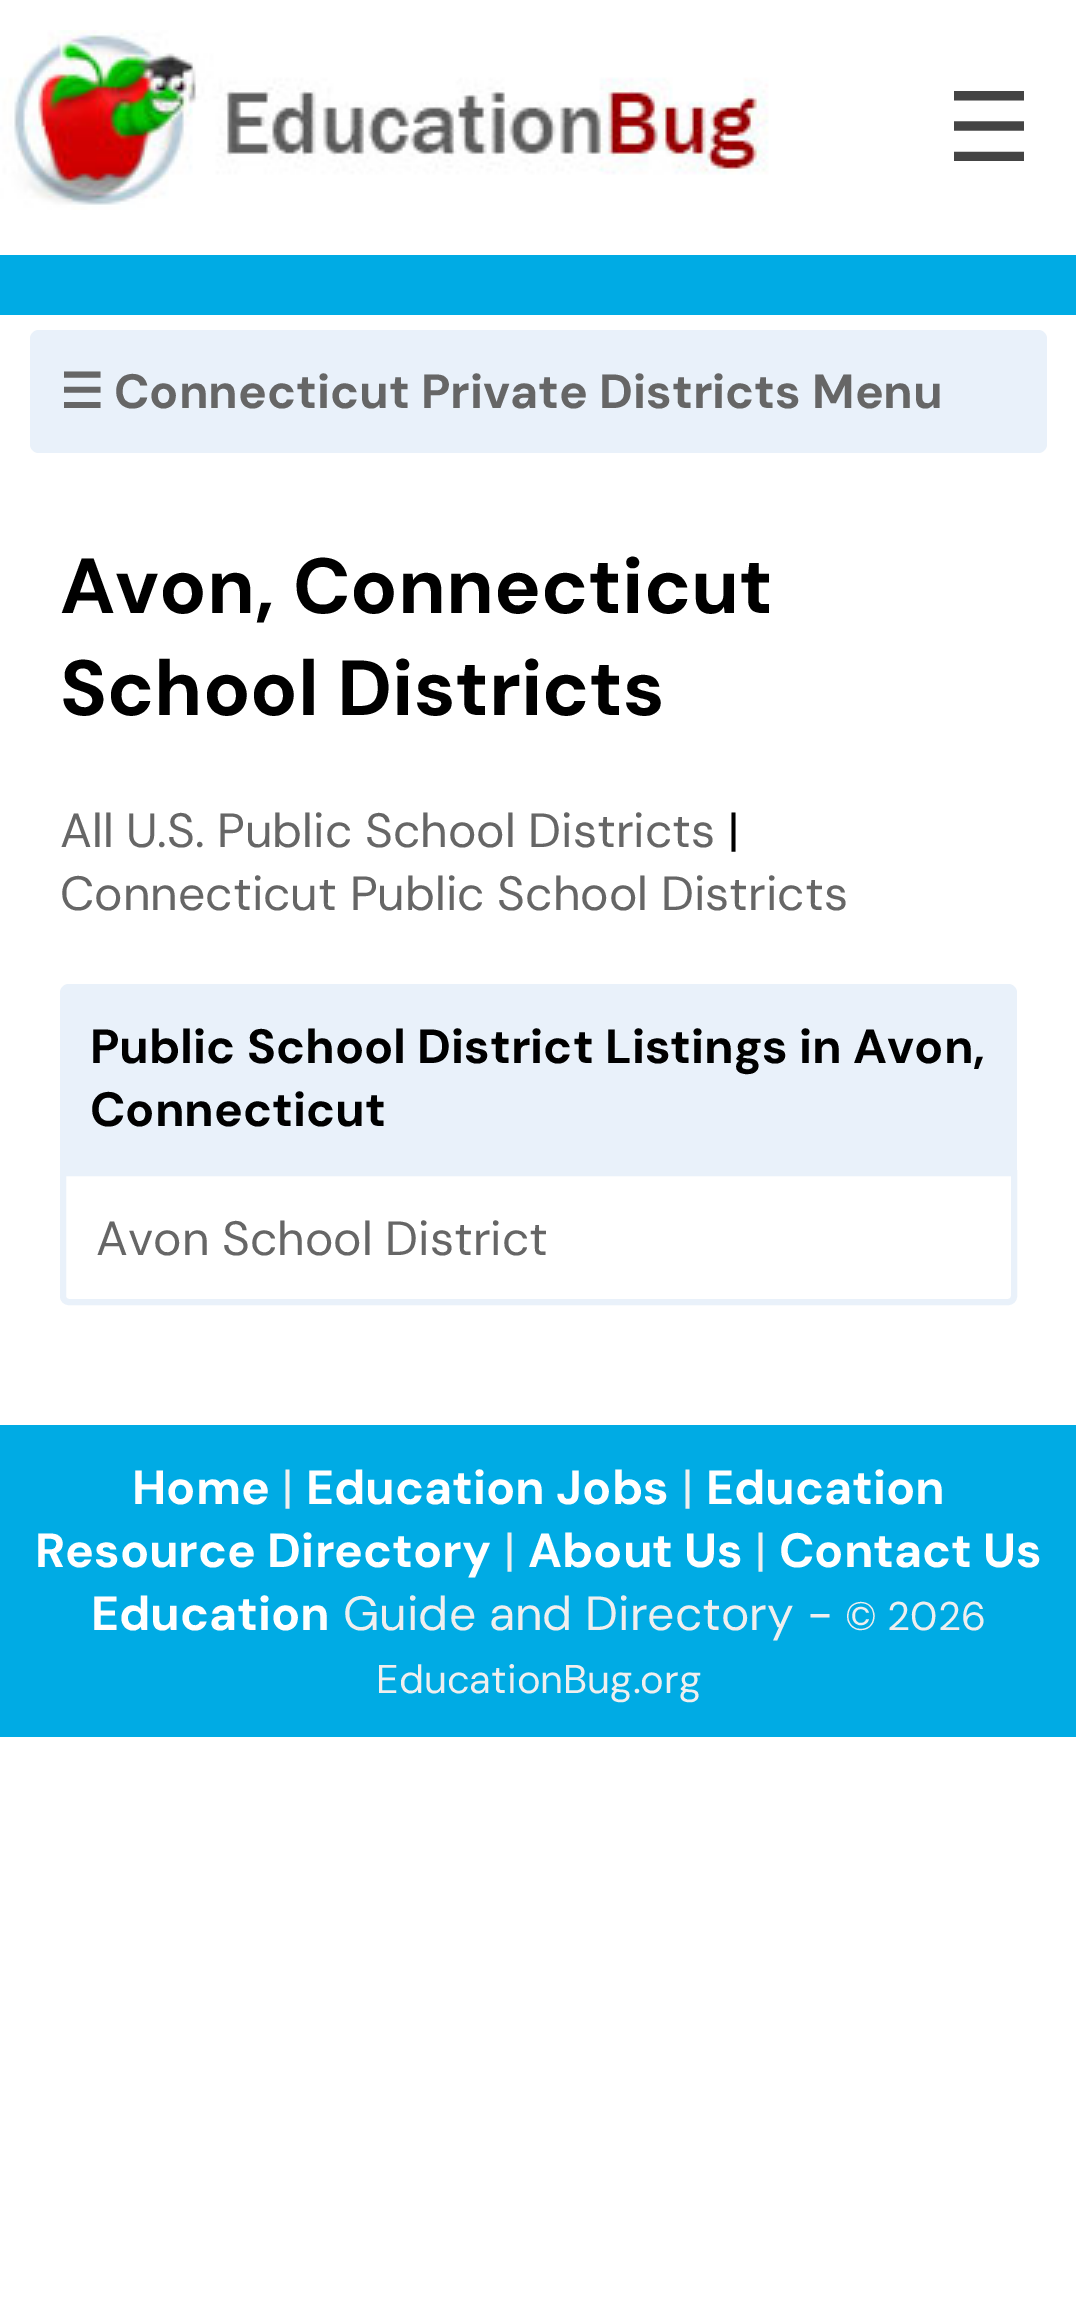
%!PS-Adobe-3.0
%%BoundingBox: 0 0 1076 2314
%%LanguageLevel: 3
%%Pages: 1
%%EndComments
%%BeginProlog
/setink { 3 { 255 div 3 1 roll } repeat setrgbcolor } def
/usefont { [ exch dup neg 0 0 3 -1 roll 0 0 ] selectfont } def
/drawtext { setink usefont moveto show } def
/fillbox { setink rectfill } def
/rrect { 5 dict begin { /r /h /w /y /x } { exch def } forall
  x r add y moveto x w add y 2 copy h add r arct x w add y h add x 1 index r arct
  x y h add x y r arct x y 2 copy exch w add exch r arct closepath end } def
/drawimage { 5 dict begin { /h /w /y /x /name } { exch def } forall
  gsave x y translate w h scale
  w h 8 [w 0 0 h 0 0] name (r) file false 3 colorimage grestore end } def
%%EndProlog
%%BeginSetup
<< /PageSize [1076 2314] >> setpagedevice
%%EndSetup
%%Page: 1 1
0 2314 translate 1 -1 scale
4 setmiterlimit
0 0 1076 2314 255 255 255 fillbox
(assets/img1.rgb) 0 30 769 180 drawimage
(☰) 946 161 /DejaVuSans-Regular 96 68 68 68 drawtext
0 255 1076 60 0 171 228 fillbox
233 241 250 setink
30 330 1017 123 9 rrect fill
(☰) 60 408 /DejaVuSans-Bold 48 102 102 102 drawtext
(Connecticut Private Districts Menu) 114 408 /DMSans-Bold 48 102 102 102 drawtext
(Avon, Connecticut) 60 613 /DMSans-Bold 78 0 0 0 drawtext
(School Districts) 60 715 /DMSans-Bold 78 0 0 0 drawtext
(All U.S. Public School Districts) 60 847 /DMSans-Regular 48 102 102 102 drawtext
(|) 728 847 /DMSans-Regular 48 0 0 0 drawtext
(Connecticut Public School Districts) 60 910 /DMSans-Regular 48 102 102 102 drawtext
233 241 250 setink
69 984 moveto 1008 984 lineto 1013 984 1017 988 1017 993 curveto 1017 1170 lineto 60 1170 lineto 60 993 lineto 60 988 64 984 69 984 curveto closepath fill
(Public School District Listings in Avon,) 90 1063 /DMSans-Bold 48 0 0 0 drawtext
(Connecticut) 90 1126 /DMSans-Bold 48 0 0 0 drawtext
233 241 250 setink
6 setlinewidth
63 1173 moveto 1014 1173 lineto 1014 1296 lineto 1014 1299.5 1011.5 1302 1008 1302 curveto 69 1302 lineto 65.5 1302 63 1299.5 63 1296 curveto closepath stroke
(Avon School District) 96 1255 /DMSans-Regular 48 102 102 102 drawtext
0 1425 1076 312 0 171 228 fillbox
(Home) 132 1504 /DMSans-Bold 48 255 255 255 drawtext
(|) 282 1504 /DMSans-Regular 48 239 239 239 drawtext
(Education Jobs) 306 1504 /DMSans-Bold 48 255 255 255 drawtext
(|) 682 1504 /DMSans-Regular 48 239 239 239 drawtext
(Education) 706 1504 /DMSans-Bold 48 255 255 255 drawtext
(Resource Directory) 35 1567 /DMSans-Bold 48 255 255 255 drawtext
(|) 504 1567 /DMSans-Regular 48 239 239 239 drawtext
(About Us) 528 1567 /DMSans-Bold 48 255 255 255 drawtext
(|) 755 1567 /DMSans-Regular 48 239 239 239 drawtext
(Contact Us) 779 1567 /DMSans-Bold 48 255 255 255 drawtext
(Education) 91 1630 /DMSans-Bold 48 255 255 255 drawtext
(Guide and Directory -) 343 1630 /DMSans-Regular 48 239 239 239 drawtext
(© 2026) 845 1630 /DMSans-Regular 40 239 239 239 drawtext
(EducationBug.org) 376 1693 /DMSans-Regular 40 239 239 239 drawtext
showpage
%%EOF
